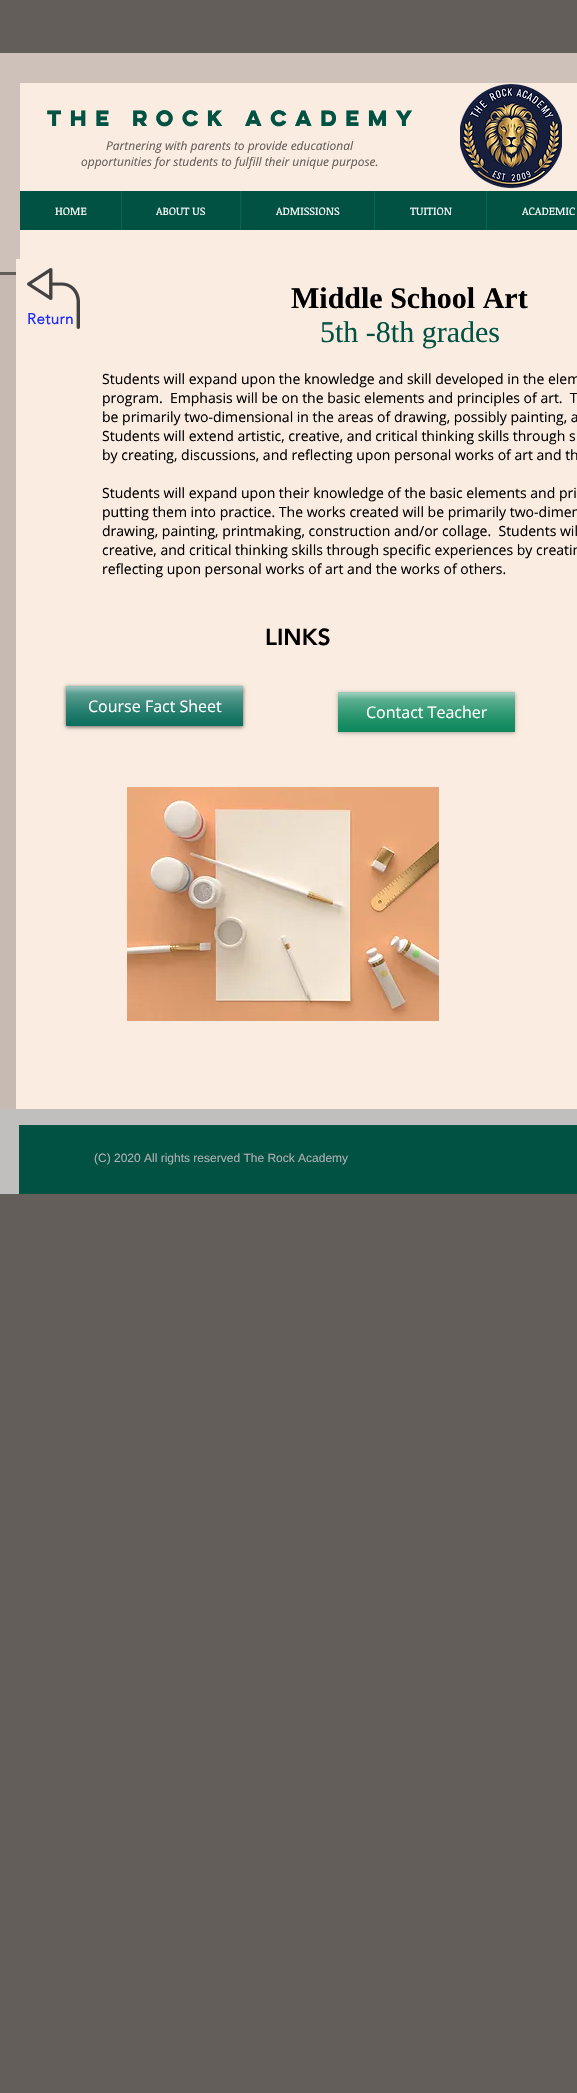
void draw(SkCanvas* canvas) {
  SkPaint paint;
  paint.setAntiAlias(true);
  auto face = [&](const char* family, int weight, float size, bool italic = false) {
    SkFontStyle style(weight, SkFontStyle::kNormal_Width,
      italic ? SkFontStyle::kItalic_Slant : SkFontStyle::kUpright_Slant);
    SkFont result(fontMgr->matchFamilyStyle(family, style), size);
    result.setSubpixel(true);
    return result;
  };
  auto writeSpaced = [&](const char* s, float x, float y, const SkFont& font, const SkPaint& ink, float letter, float word) {
    std::vector<SkGlyphID> glyphs(font.countText(s, strlen(s), SkTextEncoding::kUTF8));
    std::vector<float> xs(glyphs.size());
    font.textToGlyphs(s, strlen(s), SkTextEncoding::kUTF8, glyphs);
    font.getXPos(glyphs, xs, x);
    float extra = 0;
    for (size_t i = 0; i < glyphs.size(); i++) {
      xs[i] += extra;
      extra += letter + word * (glyphs[i] == font.unicharToGlyph(' '));
    }
    canvas->drawTextBlob(SkTextBlob::MakeFromPosHGlyphs(glyphs, xs, y, font), 0, 0, ink);
  };
  auto paste = [&](const char* path, float x, float y, float w, float h) {
    auto image = SkImages::DeferredFromEncodedData(SkData::MakeFromFileName(path));
    canvas->drawImageRect(image, SkRect::MakeXYWH(x, y, w, h), SkSamplingOptions());
  };
  canvas->clear(0xff645e5a);
  paint.setColor(0xffcdc1b9);
  canvas->drawRect(SkRect::MakeXYWH(0, 53, 577, 219), paint);
  paint.setColor(0xfffaece1);
  canvas->drawRect(SkRect::MakeXYWH(20, 83, 557, 176), paint);
  paste("img/1.png", 460, 84, 102, 105);
  {
    const struct { float x, y, w, h; SkColor color; } items[] = {
      {20, 191, 557, 39, 0xff015243},
      {121, 191, 1, 39, 0xff016855},
      {240, 191, 1, 39, 0xff016855},
      {374, 191, 1, 39, 0xff016855},
      {486, 191, 1, 39, 0xff016855},
      {0, 275, 16, 834, 0xffc6bab2},
      {16, 259, 561, 850, 0xfffaece1},
    };
    for (auto [x, y, w, h, color] : items) {
      paint.setColor(color);
      canvas->drawRect(SkRect::MakeXYWH(x, y, w, h), paint);
    }
  }
  paste("img/2.png", 27, 268, 53, 61);
  paint.setColor(0x99000000);
  paint.setMaskFilter(SkMaskFilter::MakeBlur(kNormal_SkBlurStyle, 2));
  canvas->drawRect(SkRect::MakeXYWH(66, 687, 177, 40), paint);
  paint.setMaskFilter(nullptr);
  paint.setColor(0xff016855);
  canvas->drawRect(SkRect::MakeXYWH(66, 686, 177, 40), paint);
  paste("img/3.png", 66, 686, 177, 40);
  paint.setColor(0x4d000000);
  paint.setMaskFilter(SkMaskFilter::MakeBlur(kNormal_SkBlurStyle, 2));
  canvas->drawRect(SkRect::MakeXYWH(338, 693, 177, 40), paint);
  paint.setMaskFilter(nullptr);
  paint.setColor(0xff018253);
  canvas->drawRect(SkRect::MakeXYWH(338, 692, 177, 40), paint);
  paste("img/4.png", 338, 692, 177, 40);
  paste("img/5.png", 127, 787, 312, 234);
  paint.setColor(0xffc1bfbd);
  canvas->drawRect(SkRect::MakeXYWH(0, 1109, 577, 85), paint);
  paint.setColor(0xff015243);
  canvas->drawRect(SkRect::MakeXYWH(19, 1125, 558, 69), paint);
  auto f0 = face("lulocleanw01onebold", 700, 20);
  writeSpaced("The Rock Academy", 47, 126, f0, paint, 4, 0);
  auto f1 = face("Open Sans", 400, 12, true);
  paint.setColor(0xff645e5a);
  canvas->drawString("Partnering with parents to provide educational", 106, 150, f1, paint);
  canvas->drawString("opportunities for students to fulfill their unique purpose.", 81, 166, f1, paint);
  auto f2 = face("Noticia Text", 400, 11);
  paint.setColor(0xffffffff);
  {
    const struct { const char* s; float x, y; } items[] = {
      {"HOME", 55, 215},
      {"ABOUT US", 156, 215},
      {"ADMISSIONS", 276, 215},
      {"TUITION", 410, 215},
      {"ACADEMIC", 522, 215},
    };
    for (auto [s, x, y] : items) {
      canvas->drawString(s, x, y, f2, paint);
    }
  }
  auto f3 = face("Liberation Serif", 700, 30);
  paint.setColor(0xff000000);
  canvas->drawString("Middle School Art", 291, 308, f3, paint);
  auto f4 = face("Liberation Serif", 400, 30);
  paint.setColor(0xff015243);
  canvas->drawString("5th -8th grades", 320, 342, f4, paint);
  auto f5 = face("Open Sans", 400, 14);
  paint.setColor(0xff000000);
  {
    const struct { const char* s; float x, y; } items[] = {
      {"Students will expand upon the knowledge and skill developed in the elem", 102, 384},
      {"program.  Emphasis will be on the basic elements and principles of art.  T", 102, 403},
      {"be primarily two-dimensional in the areas of drawing, possibly painting, a", 102, 422},
      {"Students will extend artistic, creative, and critical thinking skills through s", 102, 441},
      {"by creating, discussions, and reflecting upon personal works of art and th", 102, 460},
      {"Students will expand upon their knowledge of the basic elements and pri", 102, 498},
      {"putting them into practice. The works created will be primarily two-dimen", 102, 517},
      {"drawing, painting, printmaking, construction and/or collage.  Students wil", 102, 536},
      {"creative, and critical thinking skills through specific experiences by creatin", 102, 555},
      {"reflecting upon personal works of art and the works of others.", 102, 574},
    };
    for (auto [s, x, y] : items) {
      canvas->drawString(s, x, y, f5, paint);
    }
  }
  auto f6 = face("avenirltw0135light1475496", 700, 15);
  paint.setColor(0xff1d2cf3);
  writeSpaced("Return", 27, 324, f6, paint, 0.5f, 0);
  auto f7 = face("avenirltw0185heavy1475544", 900, 23);
  paint.setColor(0xff000000);
  canvas->drawString("LINKS", 265, 645, f7, paint);
  auto f8 = face("Open Sans", 400, 16);
  paint.setColor(0xffffffff);
  canvas->drawString("Course Fact Sheet", 88, 712, f8, paint);
  canvas->drawString("Contact Teacher", 366, 718, f8, paint);
  auto f9 = face("Liberation Sans", 400, 12);
  paint.setColor(0xffb0b0b0);
  canvas->drawString("(C) 2020 All rights reserved The Rock Academy", 94, 1162, f9, paint);
}
